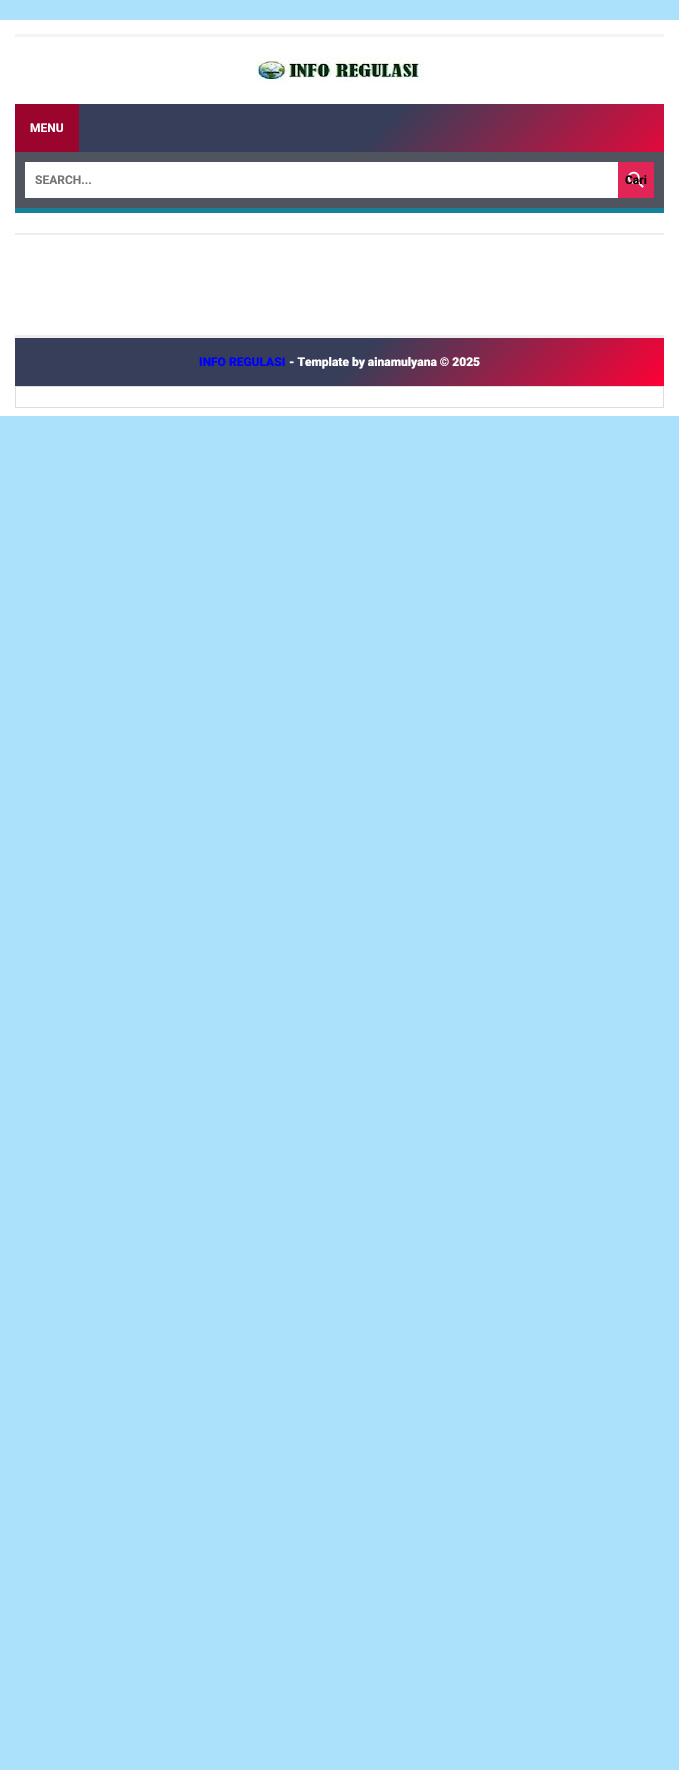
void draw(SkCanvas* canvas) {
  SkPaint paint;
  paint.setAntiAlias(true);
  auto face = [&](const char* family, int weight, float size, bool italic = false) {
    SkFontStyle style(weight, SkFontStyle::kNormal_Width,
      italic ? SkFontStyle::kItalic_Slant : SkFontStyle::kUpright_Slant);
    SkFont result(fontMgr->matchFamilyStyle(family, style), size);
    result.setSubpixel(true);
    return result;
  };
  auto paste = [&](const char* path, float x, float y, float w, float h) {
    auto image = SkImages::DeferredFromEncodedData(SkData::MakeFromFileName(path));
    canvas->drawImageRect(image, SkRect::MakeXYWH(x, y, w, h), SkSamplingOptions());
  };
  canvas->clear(0xffabe1fb);
  paint.setColor(0xffffffff);
  canvas->drawRect(SkRect::MakeXYWH(0, 20, 679, 396), paint);
  paint.setColor(0xfff3f3f3);
  canvas->drawRect(SkRect::MakeXYWH(15, 34, 649, 3), paint);
  paste("img/1.png", 256, 57, 168, 27);
  {
    const SkColor colors[] = {0xff373e59, 0xffff0036};
    const float stops[] = {0.52f, 1};
    const SkPoint ends[] = {{151, -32}, {528, 344}};
    paint.setShader(SkGradientShader::MakeLinear(ends, colors, stops, 2, SkTileMode::kClamp));
    paint.setAlpha(255);
  }
  canvas->drawRect(SkRect::MakeXYWH(79, 104, 585, 48), paint);
  paint.setShader(nullptr);
  {
    const struct { float x, y, w, h; SkColor color; } items[] = {
      {15, 104, 64, 48, 0xff9b052d},
      {15, 152, 649, 56, 0xff50545f},
      {25, 162, 593, 36, 0xffffffff},
      {618, 162, 36, 36, 0xffe12557},
    };
    for (auto [x, y, w, h, color] : items) {
      paint.setColor(color);
      canvas->drawRect(SkRect::MakeXYWH(x, y, w, h), paint);
    }
  }
  paste("img/2.png", 627, 171, 17, 17);
  paint.setColor(0xff148199);
  canvas->drawRect(SkRect::MakeXYWH(15, 208, 649, 5), paint);
  paint.setColor(0xffeeeeee);
  canvas->drawRect(SkRect::MakeXYWH(15, 233, 649, 2), paint);
  {
    const SkColor colors[] = {0xff373e59, 0xffff0036};
    const float stops[] = {0.52f, 1};
    const SkPoint ends[] = {{165, 188}, {514, 536}};
    paint.setShader(SkGradientShader::MakeLinear(ends, colors, stops, 2, SkTileMode::kClamp));
    paint.setAlpha(255);
  }
  canvas->drawRect(SkRect::MakeXYWH(15, 338, 649, 48), paint);
  paint.setShader(nullptr);
  paint.setColor(0xffeeeeee);
  canvas->drawRect(SkRect::MakeXYWH(15, 335, 649, 3), paint);
  paint.setStroke(true);
  paint.setStrokeWidth(1);
  paint.setColor(0xffdedede);
  canvas->drawRect(SkRect::MakeXYWH(15.5f, 386.5f, 648, 21), paint);
  auto f0 = face("Roboto", 700, 12);
  paint.setStroke(false);
  paint.setColor(0xffffffff);
  canvas->drawString("MENU", 30, 132, f0, paint);
  paint.setColor(0xff757575);
  canvas->drawString("SEARCH...", 35, 184, f0, paint);
  paint.setColor(0xff000000);
  canvas->drawString("Cari", 625, 184, f0, paint);
  auto f1 = face("Roboto", 900, 12);
  paint.setColor(0xff0000ff);
  canvas->drawString("INFO REGULASI", 199, 366, f1, paint);
  paint.setColor(0xffffffff);
  canvas->drawString("- Template by ainamulyana © 2025", 289, 366, f1, paint);
}
